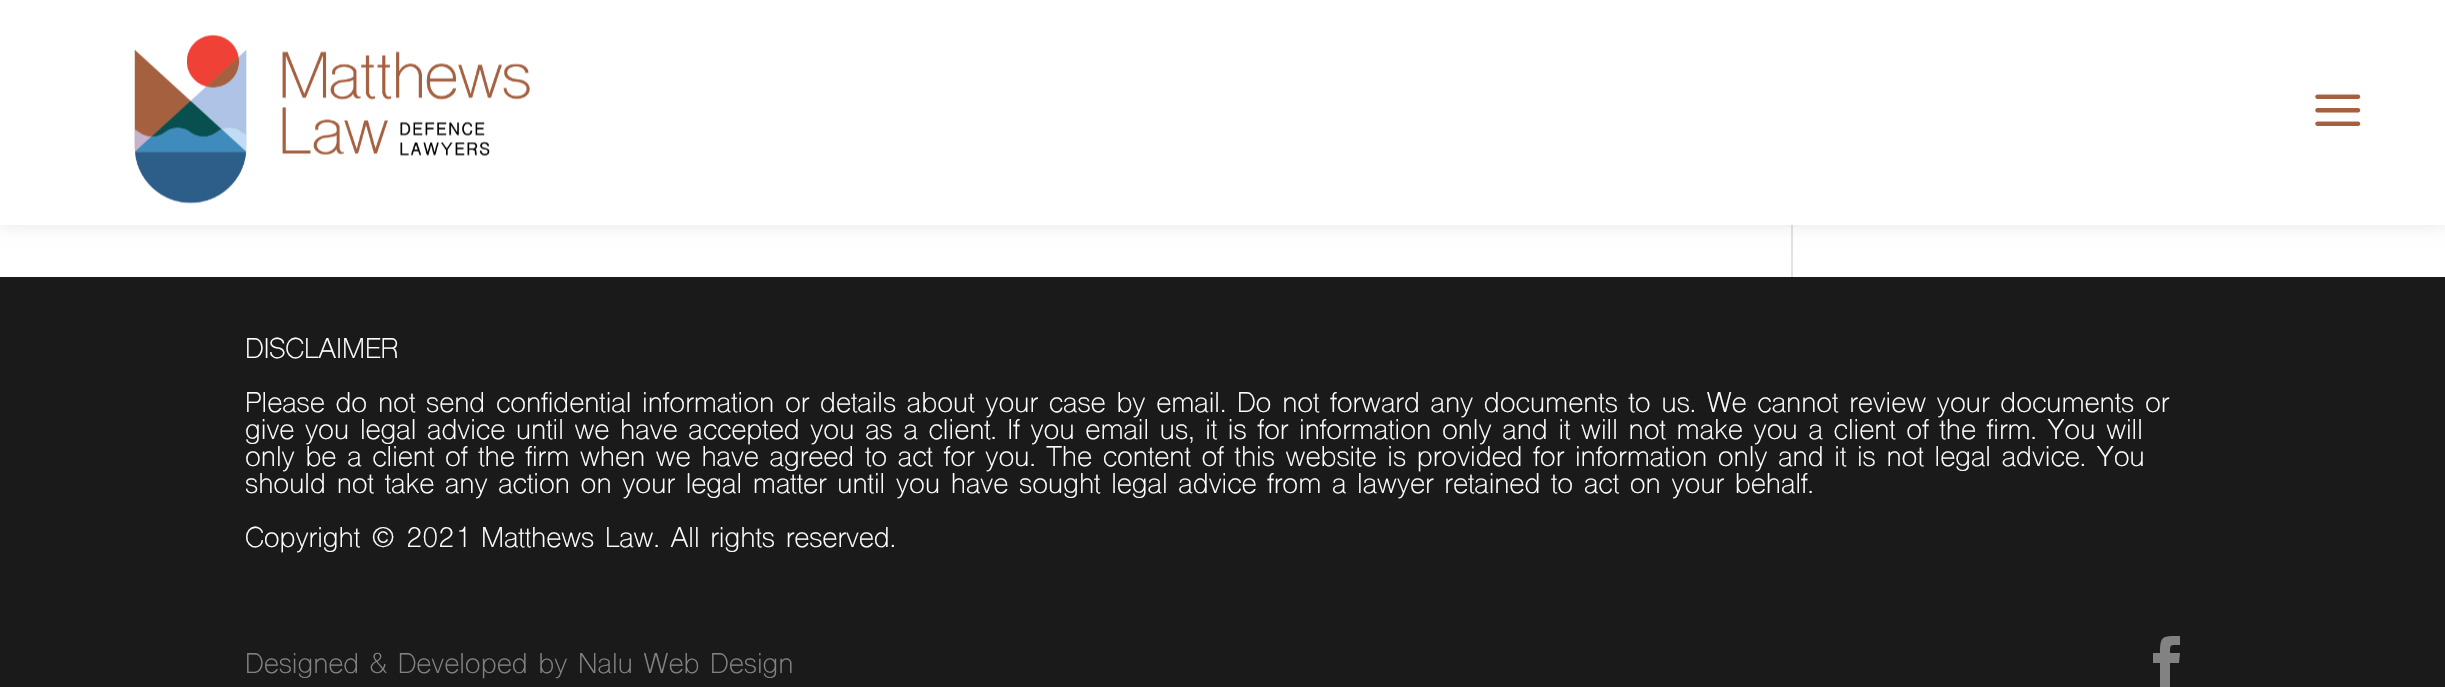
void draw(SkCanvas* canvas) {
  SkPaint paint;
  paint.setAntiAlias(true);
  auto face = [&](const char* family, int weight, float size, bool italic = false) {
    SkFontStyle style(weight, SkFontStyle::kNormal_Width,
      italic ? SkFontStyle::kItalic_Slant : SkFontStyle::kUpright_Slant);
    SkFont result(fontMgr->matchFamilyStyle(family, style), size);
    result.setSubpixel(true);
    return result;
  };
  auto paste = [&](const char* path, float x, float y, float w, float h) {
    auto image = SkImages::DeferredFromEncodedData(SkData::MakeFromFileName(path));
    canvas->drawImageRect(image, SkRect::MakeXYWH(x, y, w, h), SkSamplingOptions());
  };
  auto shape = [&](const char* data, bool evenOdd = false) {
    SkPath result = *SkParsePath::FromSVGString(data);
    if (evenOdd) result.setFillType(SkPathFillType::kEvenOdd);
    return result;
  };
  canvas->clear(0xffffffff);
  paint.setColor(0xffe2e2e2);
  canvas->drawRect(SkRect::MakeXYWH(1791, 225, 2, 52), paint);
  paint.setColor(0x1a000000);
  paint.setMaskFilter(SkMaskFilter::MakeBlur(kNormal_SkBlurStyle, 8));
  canvas->drawRect(SkRect::MakeXYWH(0, 0, 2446, 225), paint);
  paint.setMaskFilter(nullptr);
  paint.setColor(0xffffffff);
  canvas->drawRect(SkRect::MakeXYWH(0, 0, 2445, 225), paint);
  paste("img/1.png", 134, 34, 396, 170);
  paste("img/2.png", 2315, 94, 46, 32);
  paint.setColor(0xff1a1a1a);
  canvas->drawRect(SkRect::MakeXYWH(0, 277, 2445, 410), paint);
  paint.setColor(0xff828282);
  canvas->drawPath(shape("M2160 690H2170V663H2179L2180 653H2170C2170 644 2170 645 2180 645V636C2163 636 2160 635 2160 653H2153V663H2160Z"), paint);
  auto f0 = face("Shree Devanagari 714", 400, 27);
  paint.setColor(0xffffffff);
  {
    const struct { const char* s; float x, y; } items[] = {
      {"DISCLAIMER", 245, 358},
      {"Please do not send confidential information or details about your case by email. Do not forward any documents to us. We cannot review your documents or", 245, 412},
      {"give you legal advice until we have accepted you as a client. If you email us, it is for information only and it will not make you a client of the firm. You will", 245, 439},
      {"only be a client of the firm when we have agreed to act for you. The content of this website is provided for information only and it is not legal advice. You", 245, 466},
      {"should not take any action on your legal matter until you have sought legal advice from a lawyer retained to act on your behalf.", 245, 493},
      {"Copyright © 2021 Matthews Law. All rights reserved.", 245, 547},
    };
    for (auto [s, x, y] : items) {
      canvas->drawString(s, x, y, f0, paint);
    }
  }
  paint.setColor(0xff828282);
  canvas->drawString("Designed & Developed by Nalu Web Design", 245, 673, f0, paint);
}
